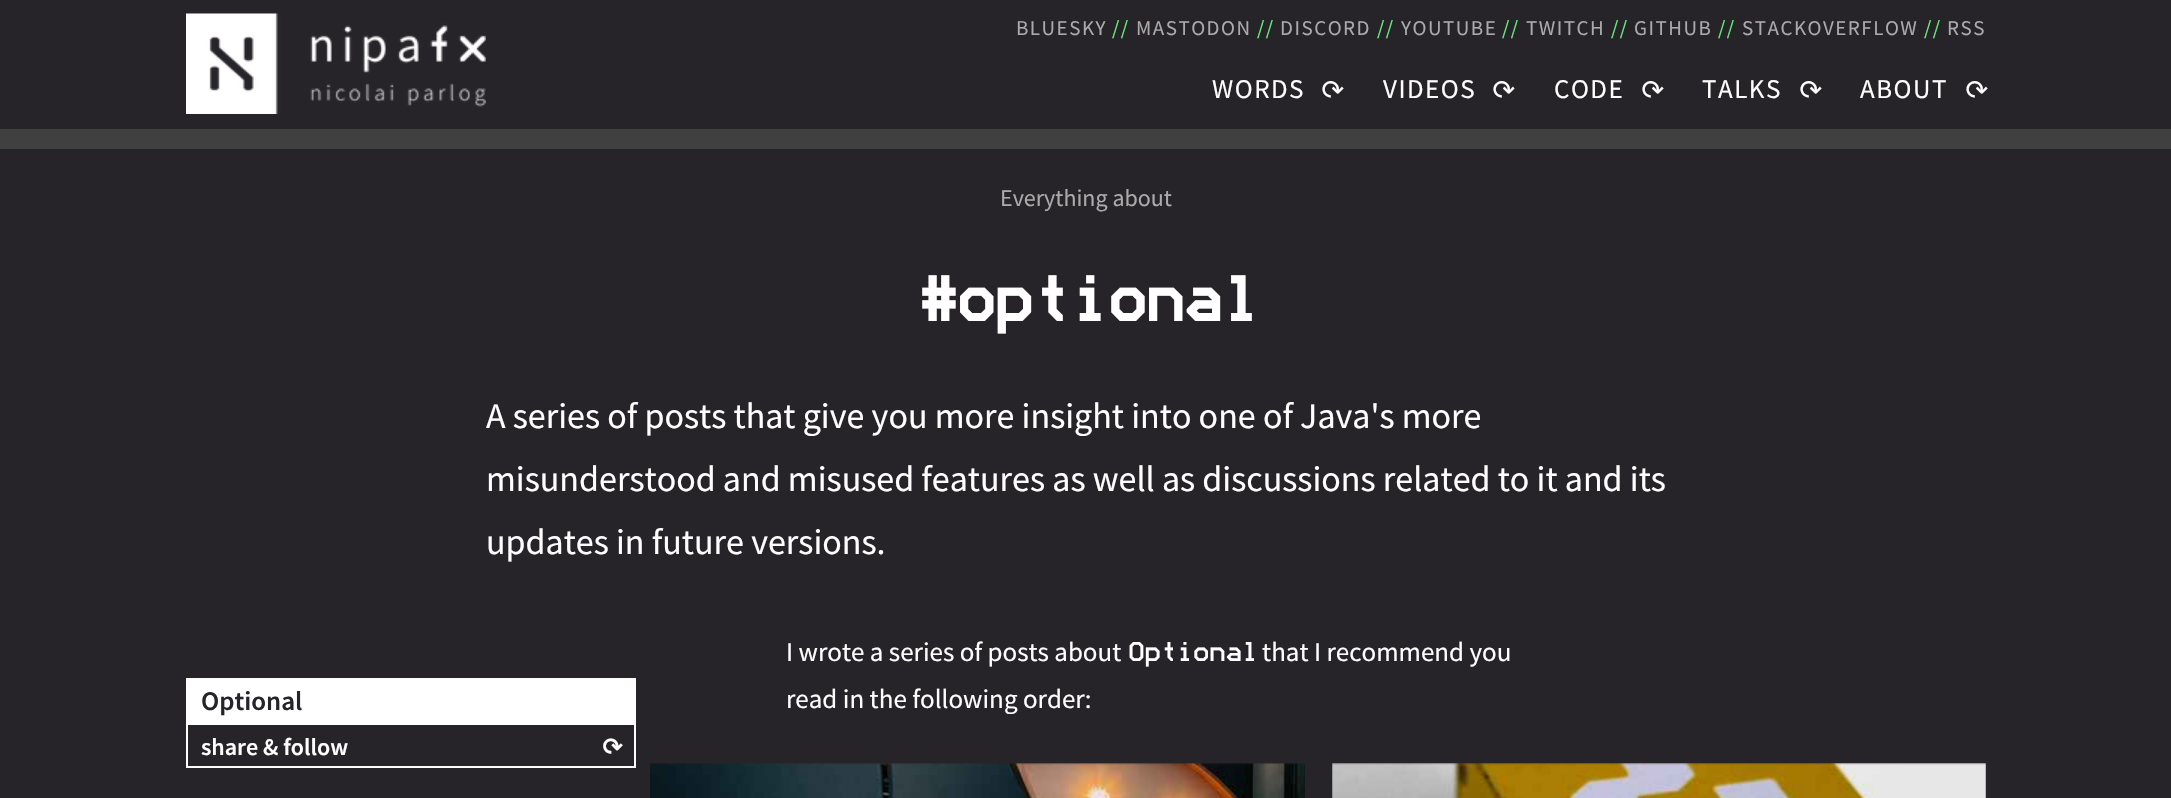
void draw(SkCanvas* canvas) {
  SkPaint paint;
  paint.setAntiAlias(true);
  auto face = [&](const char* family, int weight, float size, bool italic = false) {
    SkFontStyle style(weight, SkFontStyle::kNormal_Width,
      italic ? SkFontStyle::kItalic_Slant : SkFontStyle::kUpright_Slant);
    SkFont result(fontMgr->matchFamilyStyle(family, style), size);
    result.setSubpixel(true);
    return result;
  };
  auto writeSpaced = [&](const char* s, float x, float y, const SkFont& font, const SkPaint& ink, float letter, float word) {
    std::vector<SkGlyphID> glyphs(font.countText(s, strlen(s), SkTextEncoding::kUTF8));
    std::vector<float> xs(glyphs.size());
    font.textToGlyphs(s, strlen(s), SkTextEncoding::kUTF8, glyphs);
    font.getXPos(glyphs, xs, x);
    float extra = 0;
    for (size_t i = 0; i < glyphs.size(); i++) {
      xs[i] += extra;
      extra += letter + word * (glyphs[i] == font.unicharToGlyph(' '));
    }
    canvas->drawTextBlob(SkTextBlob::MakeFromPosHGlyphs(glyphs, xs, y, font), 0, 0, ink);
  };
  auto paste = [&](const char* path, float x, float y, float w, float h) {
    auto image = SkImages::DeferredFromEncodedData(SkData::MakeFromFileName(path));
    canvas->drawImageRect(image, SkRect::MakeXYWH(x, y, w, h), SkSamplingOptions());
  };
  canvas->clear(0xff262429);
  paste("img/1.png", 186, 13, 300, 101);
  paint.setColor(0xff404040);
  canvas->drawRect(SkRect::MakeXYWH(0, 129, 2171, 20), paint);
  paint.setStroke(true);
  paint.setStrokeWidth(2);
  paint.setColor(0xffffffff);
  canvas->drawRect(SkRect::MakeXYWH(187, 679, 448, 88), paint);
  paint.setStroke(false);
  canvas->drawRect(SkRect::MakeXYWH(188, 680, 446, 45), paint);
  paste("img/2.png", 650, 763, 655, 35);
  paste("img/3.png", 1332, 763, 654, 35);
  auto f0 = face("Source Sans Pro", 400, 21);
  paint.setColor(0xffaaaaaa);
  writeSpaced("BLUESKY", 1016, 35, f0, paint, 1.5f, 0);
  paint.setColor(0xff69ea7d);
  writeSpaced("//", 1112, 35, f0, paint, 1.5f, 0);
  paint.setColor(0xffaaaaaa);
  writeSpaced("MASTODON", 1136, 35, f0, paint, 1.5f, 0);
  paint.setColor(0xff69ea7d);
  writeSpaced("//", 1257, 35, f0, paint, 1.5f, 0);
  paint.setColor(0xffaaaaaa);
  writeSpaced("DISCORD", 1280, 35, f0, paint, 1.5f, 0);
  paint.setColor(0xff69ea7d);
  writeSpaced("//", 1377, 35, f0, paint, 1.5f, 0);
  paint.setColor(0xffaaaaaa);
  writeSpaced("YOUTUBE", 1401, 35, f0, paint, 1.5f, 0);
  paint.setColor(0xff69ea7d);
  writeSpaced("//", 1502, 35, f0, paint, 1.5f, 0);
  paint.setColor(0xffaaaaaa);
  writeSpaced("TWITCH", 1526, 35, f0, paint, 1.5f, 0);
  paint.setColor(0xff69ea7d);
  writeSpaced("//", 1611, 35, f0, paint, 1.5f, 0);
  paint.setColor(0xffaaaaaa);
  writeSpaced("GITHUB", 1634, 35, f0, paint, 1.5f, 0);
  paint.setColor(0xff69ea7d);
  writeSpaced("//", 1718, 35, f0, paint, 1.5f, 0);
  paint.setColor(0xffaaaaaa);
  writeSpaced("STACKOVERFLOW", 1742, 35, f0, paint, 1.5f, 0);
  paint.setColor(0xff69ea7d);
  writeSpaced("//", 1924, 35, f0, paint, 1.5f, 0);
  paint.setColor(0xffaaaaaa);
  writeSpaced("RSS", 1947, 35, f0, paint, 1.5f, 0);
  auto f1 = face("Source Sans Pro", 400, 27);
  paint.setColor(0xffffffff);
  writeSpaced("WORDS", 1212, 98, f1, paint, 1.5f, 0);
  auto f2 = face("DejaVu Sans", 400, 27);
  canvas->save();
  canvas->rotate(135, 1332, 74);
  writeSpaced("↻", 1332, 74, f2, paint, 1.5f, 0);
  canvas->restore();
  writeSpaced("VIDEOS", 1383, 98, f1, paint, 1.5f, 0);
  canvas->save();
  canvas->rotate(135, 1503, 74);
  writeSpaced("↻", 1503, 74, f2, paint, 1.5f, 0);
  canvas->restore();
  writeSpaced("CODE", 1554, 98, f1, paint, 1.5f, 0);
  canvas->save();
  canvas->rotate(135, 1652, 74);
  writeSpaced("↻", 1652, 74, f2, paint, 1.5f, 0);
  canvas->restore();
  writeSpaced("TALKS", 1702, 98, f1, paint, 1.5f, 0);
  canvas->save();
  canvas->rotate(135, 1810, 74);
  writeSpaced("↻", 1810, 74, f2, paint, 1.5f, 0);
  canvas->restore();
  writeSpaced("ABOUT", 1860, 98, f1, paint, 1.5f, 0);
  canvas->save();
  canvas->rotate(135, 1976, 74);
  writeSpaced("↻", 1976, 74, f2, paint, 1.5f, 0);
  canvas->restore();
  auto f3 = face("Source Sans Pro", 400, 24);
  paint.setColor(0xffaaaaaa);
  canvas->drawString("Everything about", 1000, 206, f3, paint);
  auto f4 = face("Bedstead", 700, 63);
  paint.setColor(0xffffffff);
  canvas->drawString("#optional", 916, 321, f4, paint);
  auto f5 = face("Source Sans Pro", 400, 36);
  {
    const struct { const char* s; float x, y; } items[] = {
      {"A series of posts that give you more insight into one of Java's more", 486, 428},
      {"misunderstood and misused features as well as discussions related to it and its", 486, 491},
      {"updates in future versions.", 486, 554},
    };
    for (auto [s, x, y] : items) {
      canvas->drawString(s, x, y, f5, paint);
    }
  }
  canvas->drawString("I wrote a series of posts about", 786, 661, f1, paint);
  auto f6 = face("Bedstead", 500, 27);
  canvas->drawString("Optional", 1127, 661, f6, paint);
  canvas->drawString("that I recommend you", 1262, 661, f1, paint);
  canvas->drawString("read in the following order:", 786, 708, f1, paint);
  auto f7 = face("Source Sans Pro", 600, 27);
  paint.setColor(0xff262429);
  canvas->drawString("Optional", 201, 710, f7, paint);
  auto f8 = face("Source Sans Pro", 600, 24);
  paint.setColor(0xffffffff);
  canvas->drawString("share & follow", 201, 755, f8, paint);
  auto f9 = face("DejaVu Sans", 700, 24);
  canvas->save();
  canvas->rotate(135, 612, 732);
  canvas->drawString("↻", 612, 732, f9, paint);
  canvas->restore();
}
